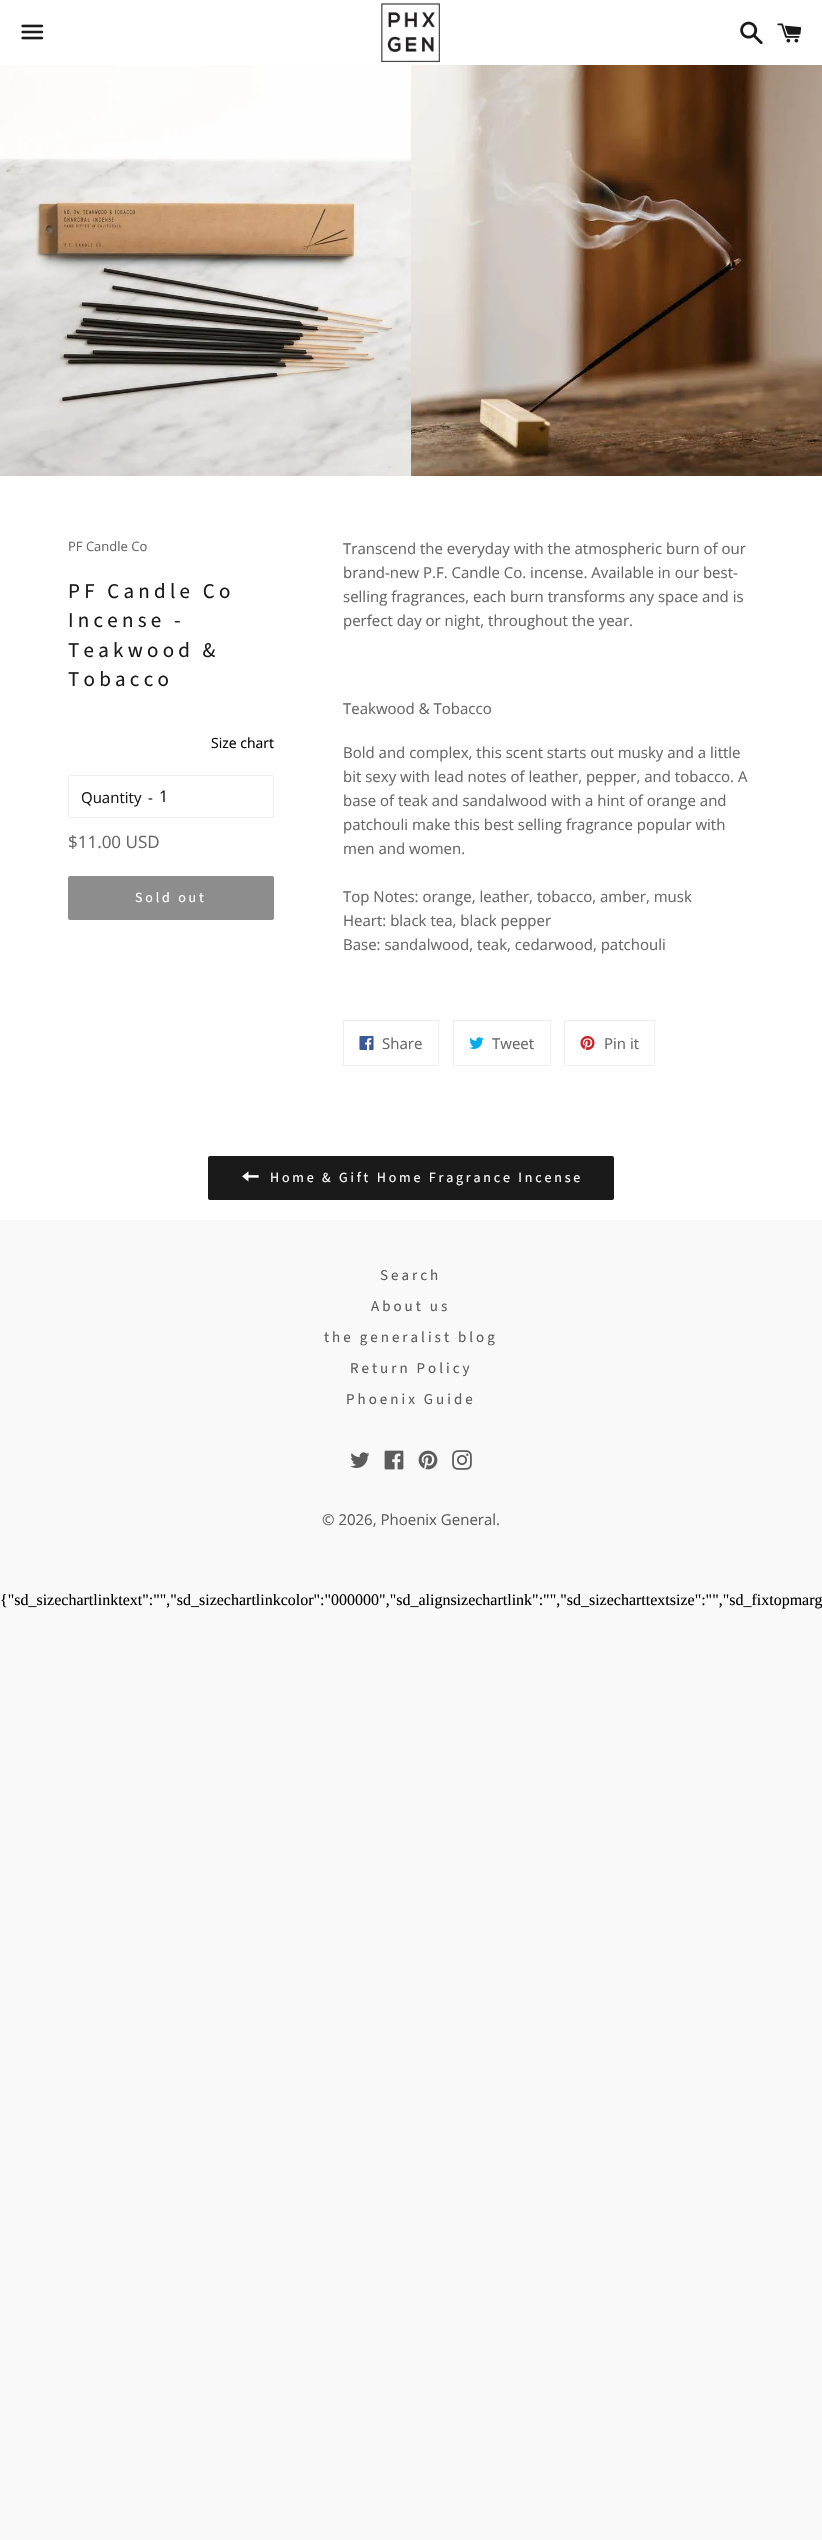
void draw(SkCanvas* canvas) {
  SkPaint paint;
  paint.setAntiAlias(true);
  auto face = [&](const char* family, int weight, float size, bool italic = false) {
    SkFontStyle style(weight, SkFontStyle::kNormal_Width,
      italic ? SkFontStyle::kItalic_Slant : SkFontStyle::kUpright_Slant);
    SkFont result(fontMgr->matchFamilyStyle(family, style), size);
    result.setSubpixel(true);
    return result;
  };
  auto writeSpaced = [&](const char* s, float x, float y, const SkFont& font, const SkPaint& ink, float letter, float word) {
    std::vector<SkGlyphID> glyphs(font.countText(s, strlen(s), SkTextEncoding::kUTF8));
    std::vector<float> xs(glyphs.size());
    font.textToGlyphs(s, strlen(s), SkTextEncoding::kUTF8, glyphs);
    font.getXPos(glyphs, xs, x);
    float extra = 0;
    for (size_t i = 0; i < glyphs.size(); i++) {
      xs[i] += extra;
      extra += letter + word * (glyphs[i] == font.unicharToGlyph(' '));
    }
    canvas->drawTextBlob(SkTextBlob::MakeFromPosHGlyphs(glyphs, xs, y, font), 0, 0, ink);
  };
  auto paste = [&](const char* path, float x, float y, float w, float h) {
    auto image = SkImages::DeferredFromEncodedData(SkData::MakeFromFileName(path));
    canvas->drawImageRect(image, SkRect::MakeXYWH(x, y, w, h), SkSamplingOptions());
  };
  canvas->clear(0xfff9f9f9);
  paint.setColor(0xffffffff);
  canvas->drawRect(SkRect::MakeXYWH(0, 0, 822, 1220), paint);
  paste("img/1.png", 21, 24, 23, 16);
  paste("img/2.png", 381, 2, 59, 61);
  paste("img/3.png", 740, 21, 23, 24);
  paste("img/4.png", 777, 23, 25, 20);
  paste("img/5.png", 0, 65, 411, 411);
  paste("img/6.png", 411, 65, 411, 411);
  paint.setStroke(true);
  paint.setStrokeWidth(1);
  paint.setColor(0xffeeeeee);
  canvas->drawRoundRect(SkRect::MakeXYWH(68.5f, 775.5f, 205, 42), 1.5f, 1.5f, paint);
  paint.setStroke(false);
  paint.setColor(0xff8d8d8d);
  canvas->drawRoundRect(SkRect::MakeXYWH(68, 876, 206, 44), 2, 2, paint);
  paint.setStroke(true);
  paint.setColor(0xffeeeeee);
  canvas->drawRect(SkRect::MakeXYWH(343.5f, 1020.5f, 95, 45), paint);
  paste("img/7.png", 359, 1036, 15, 14);
  canvas->drawRect(SkRect::MakeXYWH(453.5f, 1020.5f, 97, 45), paint);
  paste("img/8.png", 469, 1037, 15, 12);
  canvas->drawRect(SkRect::MakeXYWH(564.5f, 1020.5f, 90, 45), paint);
  paste("img/9.png", 580, 1036, 15, 14);
  paint.setStroke(false);
  paint.setColor(0xff1a1a1a);
  canvas->drawRoundRect(SkRect::MakeXYWH(208, 1156, 406, 44), 2, 2, paint);
  paste("img/10.png", 242, 1171, 17, 11);
  paste("img/11.png", 350, 1452, 20, 16);
  paste("img/12.png", 384, 1450, 20, 20);
  paste("img/13.png", 418, 1450, 20, 20);
  paste("img/14.png", 452, 1450, 20, 20);
  auto f0 = face("Open Sans", 400, 13);
  paint.setColor(0xff666666);
  canvas->drawString("PF Candle Co", 68, 551, f0, paint);
  auto f1 = face("Source Sans Pro", 400, 21);
  paint.setColor(0xff1a1a1a);
  {
    const struct { const char* s; float x, y; } items[] = {
      {"PF Candle Co", 68, 598},
      {"Incense -", 68, 627},
      {"Teakwood &", 68, 657},
      {"Tobacco", 68, 686},
    };
    for (auto [s, x, y] : items) {
      writeSpaced(s, x, y, f1, paint, 4.25f, 0);
    }
  }
  auto f2 = face("Open Sans", 400, 14);
  paint.setColor(0xff000000);
  canvas->drawString("Size chart", 211, 748, f2, paint);
  auto f3 = face("Open Sans", 400, 15);
  paint.setColor(0xff1a1a1a);
  canvas->drawString("Quantity", 81, 803, f3, paint);
  canvas->drawString("-", 148, 803, f3, paint);
  auto f4 = face("Open Sans", 400, 16);
  canvas->drawString("1", 159, 802, f4, paint);
  auto f5 = face("Open Sans", 400, 17);
  paint.setColor(0xff666666);
  canvas->drawString("$11.00 USD", 68, 848, f5, paint);
  auto f6 = face("Source Sans Pro", 400, 14);
  paint.setColor(0xffffffff);
  writeSpaced("Sold out", 135, 902, f6, paint, 2.8f, 0);
  paint.setColor(0xff666666);
  {
    const struct { const char* s; float x, y; } items[] = {
      {"Transcend the everyday with the atmospheric burn of our", 343, 554},
      {"brand-new P.F. Candle Co. incense. Available in our best-", 343, 578},
      {"selling fragrances, each burn transforms any space and is", 343, 602},
      {"perfect day or night, throughout the year.", 343, 626},
      {"Teakwood & Tobacco", 343, 714},
      {"Bold and complex, this scent starts out musky and a little", 343, 758},
      {"bit sexy with lead notes of leather, pepper, and tobacco. A", 343, 782},
      {"base of teak and sandalwood with a hint of orange and", 343, 806},
      {"patchouli make this best selling fragrance popular with", 343, 830},
      {"men and women.", 343, 854},
      {"Top Notes: orange, leather, tobacco, amber, musk", 343, 902},
      {"Heart: black tea, black pepper", 343, 926},
      {"Base: sandalwood, teak, cedarwood, patchouli", 343, 950},
      {"Share", 382, 1049},
      {"Tweet", 492, 1049},
      {"Pin it", 604, 1049},
    };
    for (auto [s, x, y] : items) {
      canvas->drawString(s, x, y, f3, paint);
    }
  }
  paint.setColor(0xffffffff);
  writeSpaced("Home & Gift Home Fragrance Incense", 270, 1182, f6, paint, 2.8f, 0);
  auto f7 = face("Source Sans Pro", 400, 15);
  paint.setColor(0xff5c5c5c);
  {
    const struct { const char* s; float x, y; } items[] = {
      {"Search", 380, 1280},
      {"About us", 371, 1311},
      {"the generalist blog", 324, 1342},
      {"Return Policy", 350, 1373},
      {"Phoenix Guide", 346, 1404},
    };
    for (auto [s, x, y] : items) {
      writeSpaced(s, x, y, f7, paint, 3, 0);
    }
  }
  canvas->drawString("© 2026, Phoenix General.", 322, 1525, f3, paint);
  auto f8 = face("Liberation Serif", 400, 16);
  paint.setColor(0xff000000);
  canvas->drawString("{\"sd_sizechartlinktext\":\"\",\"sd_sizechartlinkcolor\":\"000000\",\"sd_alignsizechartlink\":\"\",\"sd_sizecharttextsize\":\"\",\"sd_fixtopmarg", 0, 1605, f8, paint);
}
